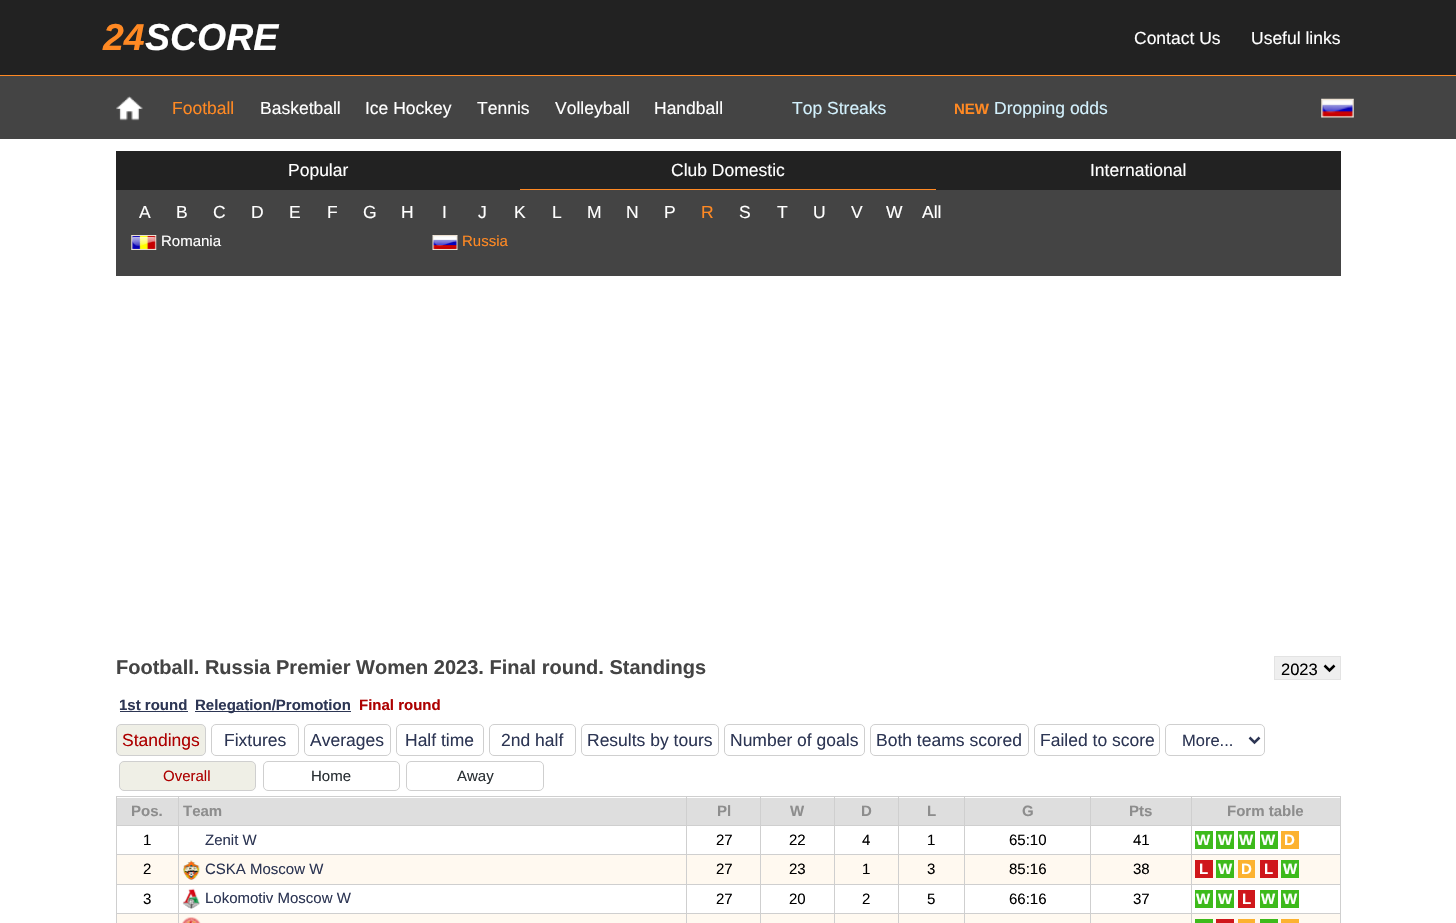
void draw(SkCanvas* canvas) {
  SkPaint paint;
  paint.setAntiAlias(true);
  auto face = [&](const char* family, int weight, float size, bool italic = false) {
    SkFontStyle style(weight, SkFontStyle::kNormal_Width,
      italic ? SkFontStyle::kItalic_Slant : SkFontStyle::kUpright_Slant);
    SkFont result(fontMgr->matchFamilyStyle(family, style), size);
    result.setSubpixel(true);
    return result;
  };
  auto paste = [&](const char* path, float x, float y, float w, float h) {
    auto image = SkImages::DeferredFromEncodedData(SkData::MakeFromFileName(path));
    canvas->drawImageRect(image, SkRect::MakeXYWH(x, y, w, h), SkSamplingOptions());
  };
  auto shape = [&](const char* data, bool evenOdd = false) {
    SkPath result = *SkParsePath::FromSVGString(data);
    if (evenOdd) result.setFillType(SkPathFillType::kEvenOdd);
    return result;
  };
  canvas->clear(0xffffffff);
  {
    const struct { float x, y, w, h; SkColor color; } items[] = {
      {0, 0, 1456, 75, 0xff222222},
      {0, 76, 1456, 63, 0xff444444},
      {0, 75, 1456, 1, 0xffff8923},
    };
    for (auto [x, y, w, h, color] : items) {
      paint.setColor(color);
      canvas->drawRect(SkRect::MakeXYWH(x, y, w, h), paint);
    }
  }
  paste("img/1.png", 116, 96, 27, 25);
  paste("img/2.png", 1321, 98, 33, 20);
  {
    const struct { float x, y, w, h; SkColor color; } items[] = {
      {116, 190, 1225, 86, 0xff444444},
      {116, 151, 1225, 39, 0xff222222},
      {520, 189, 416, 1, 0xffff8923},
    };
    for (auto [x, y, w, h, color] : items) {
      paint.setColor(color);
      canvas->drawRect(SkRect::MakeXYWH(x, y, w, h), paint);
    }
  }
  paste("img/3.png", 131, 235, 26, 15);
  paste("img/4.png", 432, 235, 26, 15);
  paint.setColor(0xffefefef);
  canvas->drawRect(SkRect::MakeXYWH(1274.5f, 656.5f, 66, 23), paint);
  paint.setStroke(true);
  paint.setStrokeWidth(1);
  paint.setColor(0xffe3e3e3);
  canvas->drawRect(SkRect::MakeXYWH(1274.5f, 656.5f, 66, 23), paint);
  paint.setStrokeWidth(2.5f);
  paint.setColor(0xff000000);
  canvas->drawPath(shape("M1324.5 665.5L1329.5 670.5L1334.5 665.5"), paint);
  paint.setStroke(false);
  paint.setColor(0xff2d3654);
  canvas->drawRect(SkRect::MakeXYWH(120, 711, 68, 1), paint);
  canvas->drawRect(SkRect::MakeXYWH(195, 711, 156, 1), paint);
  paint.setColor(0xffefefe6);
  canvas->drawRoundRect(SkRect::MakeXYWH(116.5f, 724.5f, 89, 31), 4.5f, 4.5f, paint);
  paint.setStroke(true);
  paint.setStrokeWidth(1);
  paint.setColor(0xffcfcfcf);
  canvas->drawRoundRect(SkRect::MakeXYWH(116.5f, 724.5f, 89, 31), 4.5f, 4.5f, paint);
  canvas->drawRoundRect(SkRect::MakeXYWH(211.5f, 724.5f, 87, 31), 4.5f, 4.5f, paint);
  canvas->drawRoundRect(SkRect::MakeXYWH(304.5f, 724.5f, 86, 31), 4.5f, 4.5f, paint);
  canvas->drawRoundRect(SkRect::MakeXYWH(396.5f, 724.5f, 87, 31), 4.5f, 4.5f, paint);
  canvas->drawRoundRect(SkRect::MakeXYWH(489.5f, 724.5f, 86, 31), 4.5f, 4.5f, paint);
  canvas->drawRoundRect(SkRect::MakeXYWH(581.5f, 724.5f, 137, 31), 4.5f, 4.5f, paint);
  canvas->drawRoundRect(SkRect::MakeXYWH(724.5f, 724.5f, 140, 31), 4.5f, 4.5f, paint);
  canvas->drawRoundRect(SkRect::MakeXYWH(870.5f, 724.5f, 158, 31), 4.5f, 4.5f, paint);
  canvas->drawRoundRect(SkRect::MakeXYWH(1034.5f, 724.5f, 125, 31), 4.5f, 4.5f, paint);
  canvas->drawRoundRect(SkRect::MakeXYWH(1165.5f, 724.5f, 99, 31), 4.5f, 4.5f, paint);
  paint.setStrokeWidth(2.5f);
  paint.setColor(0xff2d3654);
  canvas->drawPath(shape("M1249.5 737.5L1254.5 742.5L1259.5 737.5"), paint);
  paint.setStroke(false);
  paint.setColor(0xffefefe6);
  canvas->drawRoundRect(SkRect::MakeXYWH(119.5f, 761.5f, 136, 29), 4.5f, 4.5f, paint);
  paint.setStroke(true);
  paint.setStrokeWidth(1);
  paint.setColor(0xffcfcfcf);
  canvas->drawRoundRect(SkRect::MakeXYWH(119.5f, 761.5f, 136, 29), 4.5f, 4.5f, paint);
  canvas->drawRoundRect(SkRect::MakeXYWH(263.5f, 761.5f, 136, 29), 4.5f, 4.5f, paint);
  canvas->drawRoundRect(SkRect::MakeXYWH(406.5f, 761.5f, 137, 29), 4.5f, 4.5f, paint);
  paint.setStroke(false);
  {
    const struct { float x, y, w, h; SkColor color; } items[] = {
      {116, 796, 1225, 1, 0xffcfcfcf},
      {1340, 796, 1, 127, 0xffcfcfcf},
      {116, 796, 1, 127, 0xffcfcfcf},
      {117, 798, 61, 27, 0xffdedede},
      {179, 798, 581, 27, 0xffdedede},
      {1191, 825, 150, 1, 0xffcfcfcf},
      {1191, 854, 150, 1, 0xffcfcfcf},
      {117, 855, 1223, 29, 0xfffff9f0},
      {1191, 884, 150, 1, 0xffcfcfcf},
      {1191, 913, 150, 1, 0xffcfcfcf},
      {117, 914, 1223, 9, 0xfffff9f0},
      {1191, 913, 1, 10, 0xffcfcfcf},
      {1090, 913, 103, 1, 0xffcfcfcf},
      {1191, 884, 1, 30, 0xffcfcfcf},
      {1090, 884, 103, 1, 0xffcfcfcf},
      {1191, 854, 1, 31, 0xffcfcfcf},
      {1090, 854, 103, 1, 0xffcfcfcf},
      {1191, 825, 1, 30, 0xffcfcfcf},
      {1090, 825, 103, 1, 0xffcfcfcf},
      {1090, 913, 1, 10, 0xffcfcfcf},
      {964, 913, 127, 1, 0xffcfcfcf},
      {1090, 884, 1, 30, 0xffcfcfcf},
      {964, 884, 127, 1, 0xffcfcfcf},
      {1090, 854, 1, 31, 0xffcfcfcf},
      {964, 854, 127, 1, 0xffcfcfcf},
      {1090, 825, 1, 30, 0xffcfcfcf},
      {964, 825, 127, 1, 0xffcfcfcf},
      {964, 913, 1, 10, 0xffcfcfcf},
      {898, 913, 67, 1, 0xffcfcfcf},
      {964, 884, 1, 30, 0xffcfcfcf},
      {898, 884, 67, 1, 0xffcfcfcf},
      {964, 854, 1, 31, 0xffcfcfcf},
      {898, 854, 67, 1, 0xffcfcfcf},
      {964, 825, 1, 30, 0xffcfcfcf},
      {898, 825, 67, 1, 0xffcfcfcf},
      {898, 913, 1, 10, 0xffcfcfcf},
      {834, 913, 65, 1, 0xffcfcfcf},
      {898, 884, 1, 30, 0xffcfcfcf},
      {834, 884, 65, 1, 0xffcfcfcf},
      {898, 854, 1, 31, 0xffcfcfcf},
      {834, 854, 65, 1, 0xffcfcfcf},
      {898, 825, 1, 30, 0xffcfcfcf},
      {834, 825, 65, 1, 0xffcfcfcf},
      {834, 913, 1, 10, 0xffcfcfcf},
      {760, 913, 75, 1, 0xffcfcfcf},
      {834, 884, 1, 30, 0xffcfcfcf},
      {760, 884, 75, 1, 0xffcfcfcf},
      {834, 854, 1, 31, 0xffcfcfcf},
      {760, 854, 75, 1, 0xffcfcfcf},
      {834, 825, 1, 30, 0xffcfcfcf},
      {760, 825, 75, 1, 0xffcfcfcf},
      {760, 913, 1, 10, 0xffcfcfcf},
      {686, 913, 75, 1, 0xffcfcfcf},
      {760, 884, 1, 30, 0xffcfcfcf},
      {686, 884, 75, 1, 0xffcfcfcf},
      {760, 854, 1, 31, 0xffcfcfcf},
      {686, 854, 75, 1, 0xffcfcfcf},
      {760, 825, 1, 30, 0xffcfcfcf},
      {686, 825, 75, 1, 0xffcfcfcf},
      {686, 913, 1, 10, 0xffcfcfcf},
      {178, 913, 510, 1, 0xffcfcfcf},
      {686, 884, 1, 30, 0xffcfcfcf},
      {178, 884, 510, 1, 0xffcfcfcf},
      {686, 854, 1, 31, 0xffcfcfcf},
      {178, 854, 510, 1, 0xffcfcfcf},
      {686, 825, 1, 30, 0xffcfcfcf},
      {178, 825, 510, 1, 0xffcfcfcf},
      {178, 913, 1, 10, 0xffcfcfcf},
      {116, 913, 63, 1, 0xffcfcfcf},
      {178, 884, 1, 30, 0xffcfcfcf},
      {116, 884, 63, 1, 0xffcfcfcf},
      {178, 854, 1, 31, 0xffcfcfcf},
      {116, 854, 63, 1, 0xffcfcfcf},
      {178, 825, 1, 30, 0xffcfcfcf},
      {116, 825, 63, 1, 0xffcfcfcf},
      {178, 796, 1, 30, 0xffcfcfcf},
      {686, 796, 1, 30, 0xffcfcfcf},
      {761, 798, 73, 27, 0xffdedede},
      {760, 796, 1, 30, 0xffcfcfcf},
      {835, 798, 63, 27, 0xffdedede},
      {834, 796, 1, 30, 0xffcfcfcf},
      {899, 798, 65, 27, 0xffdedede},
      {898, 796, 1, 30, 0xffcfcfcf},
      {965, 798, 125, 27, 0xffdedede},
      {964, 796, 1, 30, 0xffcfcfcf},
      {1091, 798, 100, 27, 0xffdedede},
      {1090, 796, 1, 30, 0xffcfcfcf},
      {1192, 798, 148, 27, 0xffdedede},
      {1191, 796, 1, 30, 0xffcfcfcf},
      {1195, 831, 18, 18, 0xff3dba1b},
      {1216, 831, 18, 18, 0xff3dba1b},
      {1238, 831, 17, 18, 0xff3dba1b},
      {1260, 831, 18, 18, 0xff3dba1b},
      {1281, 831, 18, 18, 0xfffcb230},
    };
    for (auto [x, y, w, h, color] : items) {
      paint.setColor(color);
      canvas->drawRect(SkRect::MakeXYWH(x, y, w, h), paint);
    }
  }
  paste("img/5.png", 183, 860, 17, 20);
  {
    const struct { float x, y, w, h; SkColor color; } items[] = {
      {1195, 860, 18, 18, 0xffcf171b},
      {1216, 860, 18, 18, 0xff3dba1b},
      {1238, 860, 17, 18, 0xfffcb230},
      {1260, 860, 18, 18, 0xffcf171b},
      {1281, 860, 18, 18, 0xff3dba1b},
    };
    for (auto [x, y, w, h, color] : items) {
      paint.setColor(color);
      canvas->drawRect(SkRect::MakeXYWH(x, y, w, h), paint);
    }
  }
  paste("img/6.png", 182, 888, 18, 21);
  {
    const struct { float x, y, w, h; SkColor color; } items[] = {
      {1195, 890, 18, 18, 0xff3dba1b},
      {1216, 890, 18, 18, 0xff3dba1b},
      {1238, 890, 17, 18, 0xffcf171b},
      {1260, 890, 18, 18, 0xff3dba1b},
      {1281, 890, 18, 18, 0xff3dba1b},
    };
    for (auto [x, y, w, h, color] : items) {
      paint.setColor(color);
      canvas->drawRect(SkRect::MakeXYWH(x, y, w, h), paint);
    }
  }
  paste("img/7.png", 182, 917, 19, 6);
  {
    const struct { float x, y, w, h; SkColor color; } items[] = {
      {1195, 919, 18, 4, 0xff3dba1b},
      {1216, 919, 18, 4, 0xffcf171b},
      {1238, 919, 17, 4, 0xfffcb230},
      {1260, 919, 18, 4, 0xff3dba1b},
      {1281, 919, 18, 4, 0xfffcb230},
    };
    for (auto [x, y, w, h, color] : items) {
      paint.setColor(color);
      canvas->drawRect(SkRect::MakeXYWH(x, y, w, h), paint);
    }
  }
  auto f0 = face("Liberation Sans", 700, 37.5f, true);
  paint.setColor(0xffff8923);
  canvas->drawString("24", 103, 50, f0, paint);
  paint.setColor(0xffffffff);
  canvas->drawString("SCORE", 145, 50, f0, paint);
  auto f1 = face("Liberation Sans", 400, 17.5f);
  canvas->drawString("Contact Us", 1134, 44, f1, paint);
  canvas->drawString("Useful links", 1251, 44, f1, paint);
  paint.setColor(0xffff8923);
  canvas->drawString("Football", 172, 114, f1, paint);
  paint.setColor(0xffffffff);
  {
    const struct { const char* s; float x, y; } items[] = {
      {"Basketball", 260, 114},
      {"Ice Hockey", 365, 114},
      {"Tennis", 477, 114},
      {"Volleyball", 555, 114},
      {"Handball", 654, 114},
    };
    for (auto [s, x, y] : items) {
      canvas->drawString(s, x, y, f1, paint);
    }
  }
  paint.setColor(0xffd2f0fc);
  canvas->drawString("Top Streaks", 792, 114, f1, paint);
  auto f2 = face("Liberation Sans", 700, 15);
  paint.setColor(0xffff8923);
  canvas->drawString("NEW", 954, 114, f2, paint);
  paint.setColor(0xffd2f0fc);
  canvas->drawString("Dropping odds", 994, 114, f1, paint);
  paint.setColor(0xffffffff);
  {
    const struct { const char* s; float x, y; } items[] = {
      {"Popular", 288, 176},
      {"Club Domestic", 671, 176},
      {"International", 1090, 176},
      {"A", 139, 218},
      {"B", 176, 218},
      {"C", 213, 218},
      {"D", 251, 218},
      {"E", 289, 218},
      {"F", 327, 218},
      {"G", 363, 218},
      {"H", 401, 218},
      {"I", 442, 218},
      {"J", 478, 218},
      {"K", 514, 218},
      {"L", 552, 218},
      {"M", 587, 218},
      {"N", 626, 218},
      {"P", 664, 218},
    };
    for (auto [s, x, y] : items) {
      canvas->drawString(s, x, y, f1, paint);
    }
  }
  paint.setColor(0xffff8923);
  canvas->drawString("R", 701, 218, f1, paint);
  paint.setColor(0xffffffff);
  {
    const struct { const char* s; float x, y; } items[] = {
      {"S", 739, 218},
      {"T", 777, 218},
      {"U", 813, 218},
      {"V", 851, 218},
      {"W", 886, 218},
      {"All", 922, 218},
    };
    for (auto [s, x, y] : items) {
      canvas->drawString(s, x, y, f1, paint);
    }
  }
  auto f3 = face("Liberation Sans", 400, 15);
  canvas->drawString("Romania", 161, 246, f3, paint);
  paint.setColor(0xffff8923);
  canvas->drawString("Russia", 462, 246, f3, paint);
  auto f4 = face("Liberation Sans", 700, 20);
  paint.setColor(0xff444444);
  canvas->drawString("Football. Russia Premier Women 2023. Final round. Standings", 116, 674, f4, paint);
  auto f5 = face("Liberation Sans", 400, 16.5f);
  paint.setColor(0xff000000);
  canvas->drawString("2023", 1281, 675, f5, paint);
  paint.setColor(0xff2d3654);
  canvas->drawString("1st round", 119, 710, f2, paint);
  canvas->drawString("Relegation/Promotion", 195, 710, f2, paint);
  paint.setColor(0xffad0000);
  canvas->drawString("Final round", 359, 710, f2, paint);
  canvas->drawString("Standings", 122, 746, f1, paint);
  paint.setColor(0xff2d3654);
  {
    const struct { const char* s; float x, y; } items[] = {
      {"Fixtures", 224, 746},
      {"Averages", 310, 746},
      {"Half time", 405, 746},
      {"2nd half", 501, 746},
      {"Results by tours", 587, 746},
      {"Number of goals", 730, 746},
      {"Both teams scored", 876, 746},
      {"Failed to score", 1040, 746},
    };
    for (auto [s, x, y] : items) {
      canvas->drawString(s, x, y, f1, paint);
    }
  }
  canvas->drawString("More...", 1182, 746, f5, paint);
  paint.setColor(0xffad0000);
  canvas->drawString("Overall", 163, 781, f3, paint);
  paint.setColor(0xff292f33);
  canvas->drawString("Home", 311, 781, f3, paint);
  canvas->drawString("Away", 457, 781, f3, paint);
  paint.setColor(0xff8d8d8d);
  {
    const struct { const char* s; float x, y; } items[] = {
      {"Pos.", 131, 816},
      {"Team", 183, 816},
      {"Pl", 717, 816},
      {"W", 790, 816},
      {"D", 861, 816},
      {"L", 927, 816},
      {"G", 1022, 816},
      {"Pts", 1129, 816},
      {"Form table", 1227, 816},
    };
    for (auto [s, x, y] : items) {
      canvas->drawString(s, x, y, f2, paint);
    }
  }
  paint.setColor(0xff000000);
  canvas->drawString("1", 143, 845, f3, paint);
  paint.setColor(0xff2d3654);
  canvas->drawString("Zenit W", 205, 845, f3, paint);
  paint.setColor(0xff000000);
  {
    const struct { const char* s; float x, y; } items[] = {
      {"27", 716, 845},
      {"22", 789, 845},
      {"4", 862, 845},
      {"1", 927, 845},
      {"65:10", 1009, 845},
      {"41", 1133, 845},
    };
    for (auto [s, x, y] : items) {
      canvas->drawString(s, x, y, f3, paint);
    }
  }
  paint.setColor(0xffffffff);
  {
    const struct { const char* s; float x, y; } items[] = {
      {"W", 1196, 845},
      {"W", 1218, 845},
      {"W", 1239, 845},
      {"W", 1261, 845},
      {"D", 1284, 845},
    };
    for (auto [s, x, y] : items) {
      canvas->drawString(s, x, y, f2, paint);
    }
  }
  paint.setColor(0xff000000);
  canvas->drawString("2", 143, 874, f3, paint);
  paint.setColor(0xff2d3654);
  canvas->drawString("CSKA Moscow W", 205, 874, f3, paint);
  paint.setColor(0xff000000);
  {
    const struct { const char* s; float x, y; } items[] = {
      {"27", 716, 874},
      {"23", 789, 874},
      {"1", 862, 874},
      {"3", 927, 874},
      {"85:16", 1009, 874},
      {"38", 1133, 874},
    };
    for (auto [s, x, y] : items) {
      canvas->drawString(s, x, y, f3, paint);
    }
  }
  paint.setColor(0xffffffff);
  {
    const struct { const char* s; float x, y; } items[] = {
      {"L", 1199, 874},
      {"W", 1218, 874},
      {"D", 1241, 874},
      {"L", 1264, 874},
      {"W", 1283, 874},
    };
    for (auto [s, x, y] : items) {
      canvas->drawString(s, x, y, f2, paint);
    }
  }
  paint.setColor(0xff000000);
  canvas->drawString("3", 143, 904, f3, paint);
  paint.setColor(0xff2d3654);
  canvas->drawString("Lokomotiv Moscow W", 205, 903, f3, paint);
  paint.setColor(0xff000000);
  {
    const struct { const char* s; float x, y; } items[] = {
      {"27", 716, 904},
      {"20", 789, 904},
      {"2", 862, 904},
      {"5", 927, 904},
      {"66:16", 1009, 904},
      {"37", 1133, 904},
    };
    for (auto [s, x, y] : items) {
      canvas->drawString(s, x, y, f3, paint);
    }
  }
  paint.setColor(0xffffffff);
  {
    const struct { const char* s; float x, y; } items[] = {
      {"W", 1196, 904},
      {"W", 1218, 904},
      {"L", 1242, 904},
      {"W", 1261, 904},
      {"W", 1283, 904},
    };
    for (auto [s, x, y] : items) {
      canvas->drawString(s, x, y, f2, paint);
    }
  }
}
